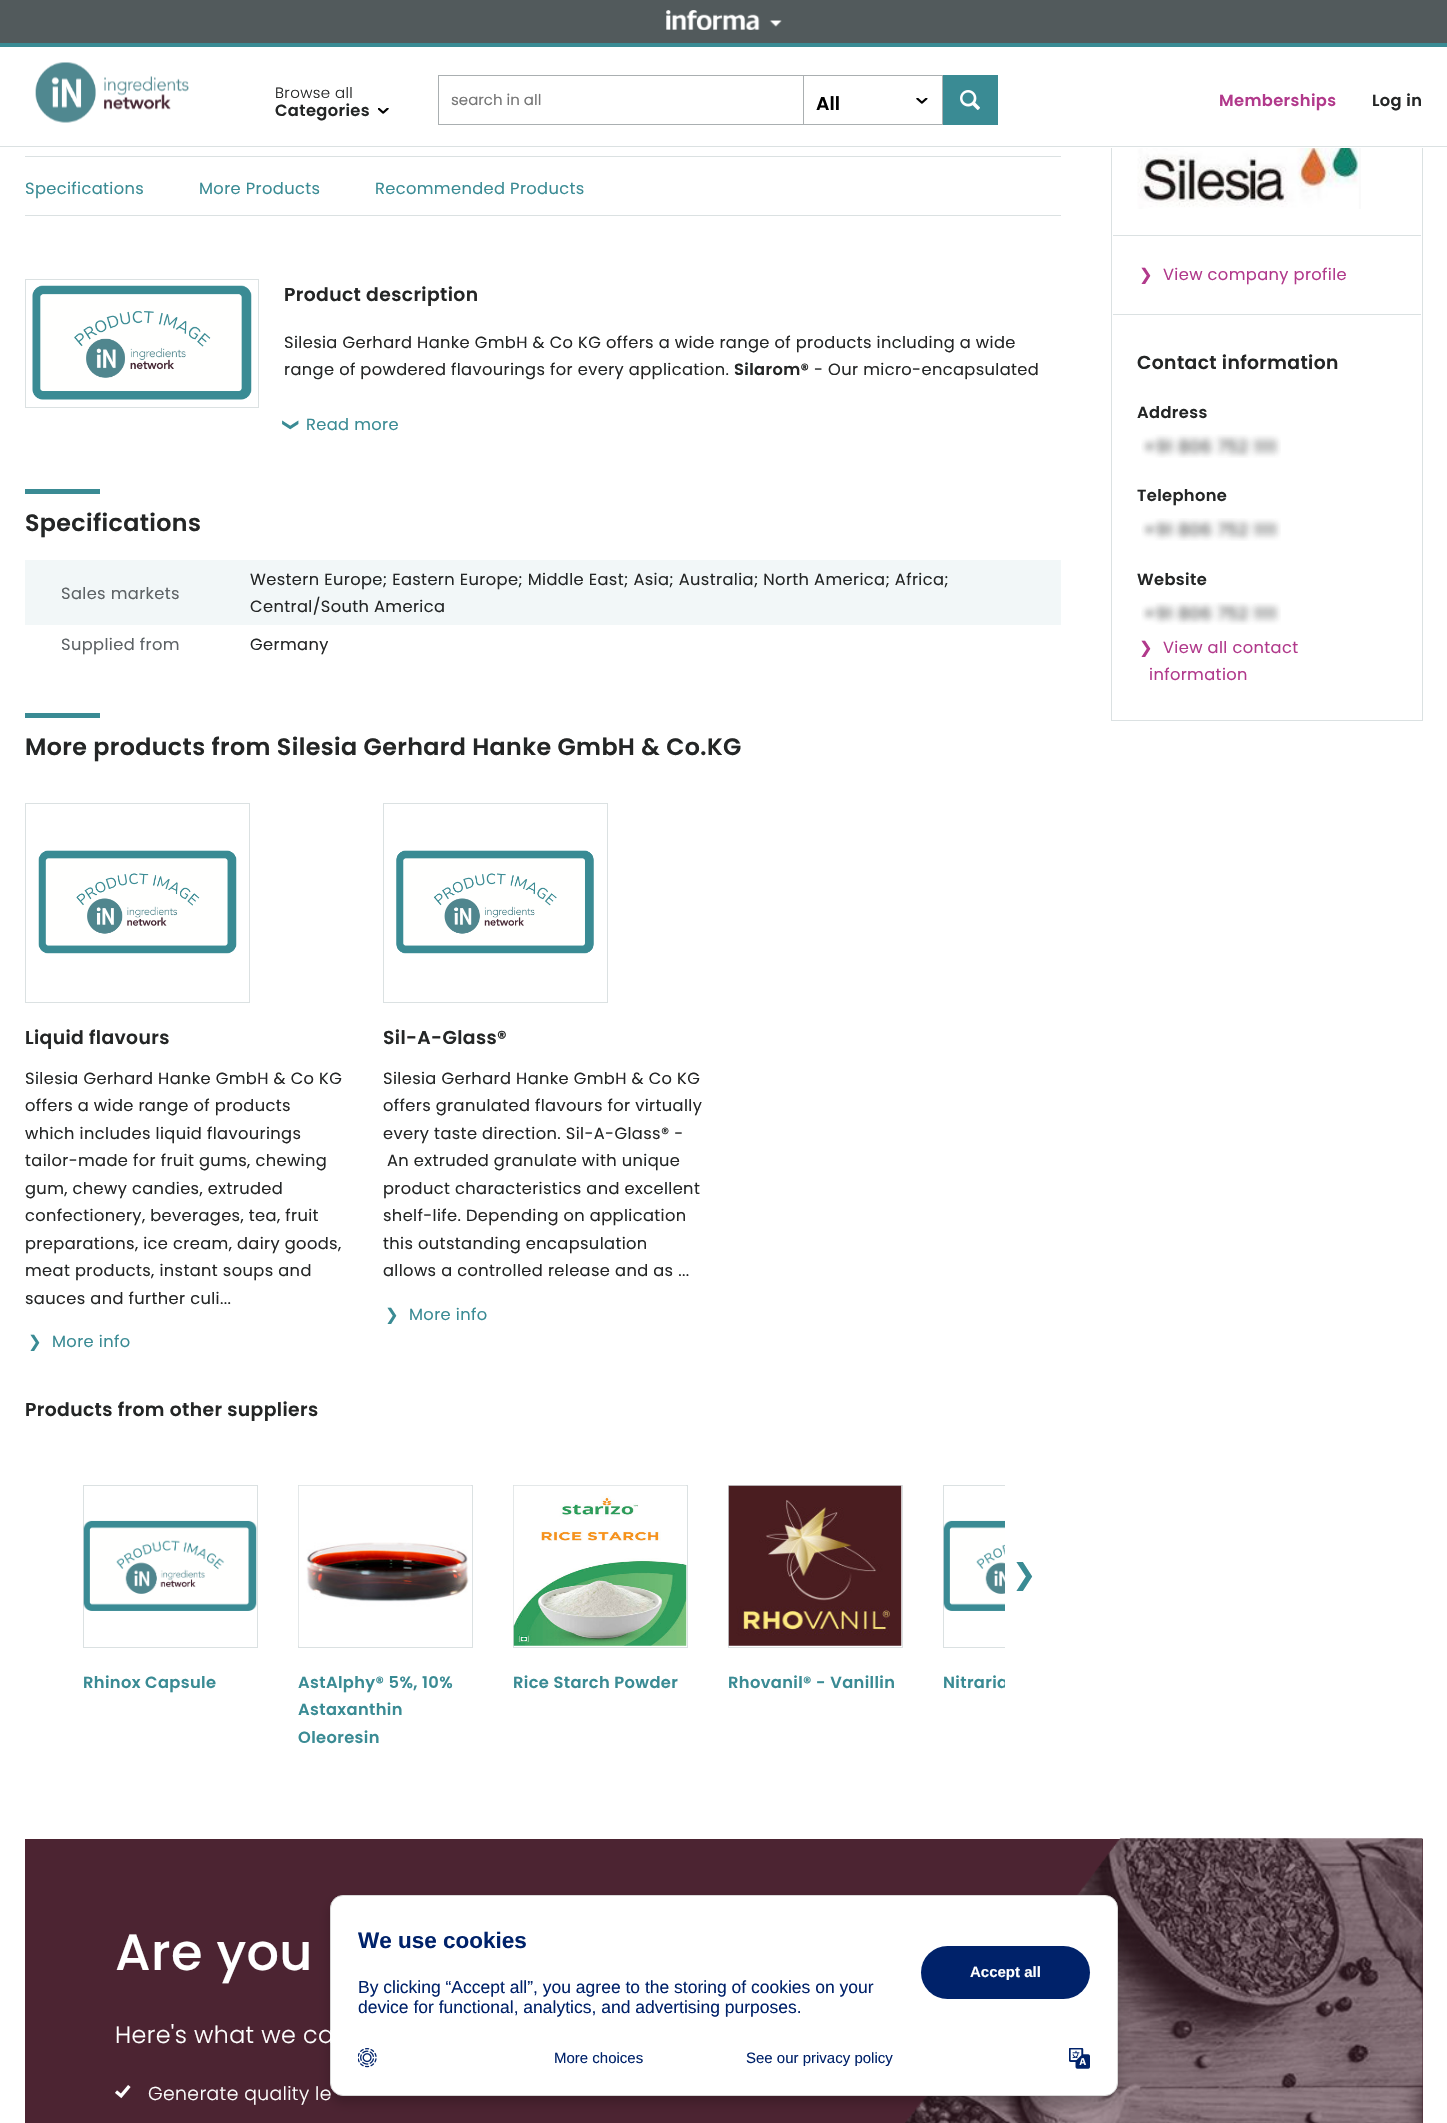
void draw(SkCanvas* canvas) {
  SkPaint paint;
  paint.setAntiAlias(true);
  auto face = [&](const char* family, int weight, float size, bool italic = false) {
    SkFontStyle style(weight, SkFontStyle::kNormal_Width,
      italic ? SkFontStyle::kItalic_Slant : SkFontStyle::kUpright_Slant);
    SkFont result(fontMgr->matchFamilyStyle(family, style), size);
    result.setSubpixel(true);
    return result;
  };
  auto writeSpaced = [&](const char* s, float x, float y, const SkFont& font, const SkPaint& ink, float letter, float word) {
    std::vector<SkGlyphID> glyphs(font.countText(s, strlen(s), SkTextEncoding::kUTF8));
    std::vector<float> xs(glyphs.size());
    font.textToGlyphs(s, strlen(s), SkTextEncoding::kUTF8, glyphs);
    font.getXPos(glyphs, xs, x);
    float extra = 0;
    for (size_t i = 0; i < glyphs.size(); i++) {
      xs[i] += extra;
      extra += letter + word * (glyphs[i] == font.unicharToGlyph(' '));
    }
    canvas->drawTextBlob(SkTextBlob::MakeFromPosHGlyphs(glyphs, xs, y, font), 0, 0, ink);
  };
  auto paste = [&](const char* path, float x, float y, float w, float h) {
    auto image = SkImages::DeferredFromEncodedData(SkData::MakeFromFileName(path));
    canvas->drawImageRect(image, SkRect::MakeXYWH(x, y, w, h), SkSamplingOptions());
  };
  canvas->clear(0xffffffff);
  paint.setStroke(true);
  paint.setStrokeWidth(1);
  paint.setColor(0xffdbe1e2);
  canvas->drawRect(SkRect::MakeXYWH(1111.5f, 101.5f, 311, 619), paint);
  paint.setStroke(false);
  {
    const struct { float x, y, w, h; SkColor color; } items[] = {
      {1111, 101, 312, 47, 0xffffffff},
      {0, 146, 1447, 1, 0xffdbe1e2},
      {0, 0, 1447, 43, 0xff525a5c},
      {0, 43, 1447, 4, 0xff3a8b94},
    };
    for (auto [x, y, w, h, color] : items) {
      paint.setColor(color);
      canvas->drawRect(SkRect::MakeXYWH(x, y, w, h), paint);
    }
  }
  paste("img/1.png", 666, 10, 116, 20);
  paste("img/2.png", 35, 62, 154, 61);
  paste("img/3.png", 378, 108, 11, 6);
  paint.setStroke(true);
  paint.setColor(0xffaaafb1);
  canvas->drawRect(SkRect::MakeXYWH(438.5f, 75.5f, 559, 49), paint);
  paste("img/4.png", 916, 98, 12, 6);
  canvas->drawRect(SkRect::MakeXYWH(803.5f, 75.5f, 139, 49), paint);
  paint.setStroke(false);
  paint.setColor(0xff3a8b94);
  canvas->drawRect(SkRect::MakeXYWH(943, 75, 55, 50), paint);
  paste("img/5.png", 960, 90, 20, 20);
  paint.setColor(0xffdbe1e2);
  canvas->drawRect(SkRect::MakeXYWH(25, 156, 1036, 1), paint);
  canvas->drawRect(SkRect::MakeXYWH(25, 215, 1036, 1), paint);
  paint.setStroke(true);
  canvas->drawRect(SkRect::MakeXYWH(25.5f, 279.5f, 233, 128), paint);
  paste("img/6.png", 32, 285, 220, 115);
  paint.setStroke(false);
  {
    const struct { float x, y, w, h; SkColor color; } items[] = {
      {25, 489, 75, 5, 0xff3a8b94},
      {25, 560, 1036, 65, 0xfff2f7f8},
      {25, 713, 75, 5, 0xff3a8b94},
    };
    for (auto [x, y, w, h, color] : items) {
      paint.setColor(color);
      canvas->drawRect(SkRect::MakeXYWH(x, y, w, h), paint);
    }
  }
  paint.setStroke(true);
  paint.setColor(0xffdbe1e2);
  canvas->drawRect(SkRect::MakeXYWH(25.5f, 803.5f, 224, 199), paint);
  paste("img/7.png", 38, 850, 199, 104);
  canvas->drawRect(SkRect::MakeXYWH(383.5f, 803.5f, 224, 199), paint);
  paste("img/8.png", 396, 850, 198, 104);
  canvas->drawRect(SkRect::MakeXYWH(83.5f, 1485.5f, 174, 162), paint);
  paste("img/9.png", 83, 1520, 174, 91);
  canvas->drawRect(SkRect::MakeXYWH(298.5f, 1485.5f, 174, 162), paint);
  paste("img/10.png", 298, 1485, 173, 161);
  canvas->drawRect(SkRect::MakeXYWH(513.5f, 1485.5f, 174, 162), paint);
  paste("img/11.png", 513, 1485, 174, 161);
  canvas->drawRect(SkRect::MakeXYWH(728.5f, 1485.5f, 174, 162), paint);
  paste("img/12.png", 728, 1485, 174, 161);
  canvas->save();
  canvas->clipRect(SkRect::MakeXYWH(81, 1484, 924, 261));
  canvas->drawRect(SkRect::MakeXYWH(943.5f, 1485.5f, 174, 162), paint);
  canvas->restore();
  paste("img/13.png", 943, 1520, 62, 91);
  paint.setStroke(false);
  canvas->drawRect(SkRect::MakeXYWH(1113, 235, 308, 1), paint);
  paste("img/14.png", 1137, 148, 224, 61);
  canvas->drawRect(SkRect::MakeXYWH(1113, 314, 308, 1), paint);
  paste("img/15.png", 1141, 434, 140, 24);
  paste("img/16.png", 1141, 518, 140, 23);
  paste("img/17.png", 1141, 602, 140, 23);
  paint.setColor(0xff4c2432);
  canvas->drawRect(SkRect::MakeXYWH(25, 1839, 1398, 284), paint);
  paste("img/18.png", 905, 1838, 518, 285);
  paste("img/19.png", 115, 2085, 16, 14);
  paint.setColor(0x33000000);
  paint.setMaskFilter(SkMaskFilter::MakeBlur(kNormal_SkBlurStyle, 6));
  canvas->drawRoundRect(SkRect::MakeXYWH(330, 1901, 788, 202), 13, 13, paint);
  paint.setMaskFilter(nullptr);
  paint.setColor(0xffffffff);
  canvas->drawRoundRect(SkRect::MakeXYWH(330.5f, 1895.5f, 787, 200), 12.5f, 12.5f, paint);
  paint.setStroke(true);
  paint.setColor(0xffd8d8d8);
  canvas->drawRoundRect(SkRect::MakeXYWH(330.5f, 1895.5f, 787, 200), 12.5f, 12.5f, paint);
  paint.setStroke(false);
  paint.setColor(0xff00226a);
  canvas->drawRoundRect(SkRect::MakeXYWH(921, 1946, 169, 53), 26.5f, 26.5f, paint);
  paste("img/20.png", 358, 2048, 19, 20);
  paste("img/21.png", 1069, 2048, 21, 21);
  auto f0 = face("Poppins", 300, 15);
  paint.setColor(0xff242626);
  writeSpaced("Browse all", 275, 98, f0, paint, 0.38f, 0);
  auto f1 = face("Poppins", 600, 16.25f);
  writeSpaced("Categories", 275, 116, f1, paint, 0.38f, 0);
  auto f2 = face("Poppins", 400, 15);
  paint.setColor(0xff757575);
  canvas->drawString("search in all", 451, 105, f2, paint);
  auto f3 = face("Poppins", 600, 18.75f);
  paint.setColor(0xff000000);
  canvas->drawString("All", 816, 110, f3, paint);
  paint.setColor(0xffb1398b);
  writeSpaced("Memberships", 1219, 106, f1, paint, 0.38f, 0);
  paint.setColor(0xff242626);
  writeSpaced("Log in", 1372, 106, f1, paint, 0.38f, 0);
  auto f4 = face("Poppins", 400, 16.25f);
  paint.setColor(0xff3a8b94);
  {
    const struct { const char* s; float x, y; } items[] = {
      {"Specifications", 25, 194},
      {"More Products", 199, 194},
      {"Recommended Products", 375, 194},
    };
    for (auto [s, x, y] : items) {
      writeSpaced(s, x, y, f4, paint, 0.38f, 0);
    }
  }
  paint.setColor(0xff242626);
  writeSpaced("Product description", 284, 301, f3, paint, 0.38f, 0);
  writeSpaced("Silesia Gerhard Hanke GmbH & Co KG offers a wide range of products including a wide", 284, 348, f4, paint, 0.38f, 0);
  writeSpaced("range of powdered flavourings for every application.", 284, 375, f4, paint, 0.38f, 0);
  writeSpaced("Silarom®", 734, 375, f1, paint, 0.38f, 0);
  writeSpaced("- Our micro-encapsulated", 814, 375, f4, paint, 0.38f, 0);
  {
    const SkColor colors[] = {0x66ffffff, 0xffffffff};
    const float stops[] = {0, 1};
    const SkPoint ends[] = {{673, 379}, {673, 409}};
    paint.setShader(SkGradientShader::MakeLinear(ends, colors, stops, 2, SkTileMode::kClamp));
    paint.setAlpha(255);
  }
  canvas->drawRect(SkRect::MakeXYWH(316, 379, 651, 1), paint);
  auto f5 = face("DejaVu Sans", 400, 16.25f);
  paint.setShader(nullptr);
  paint.setColor(0xff3a8b94);
  canvas->save();
  canvas->rotate(90, 286, 418);
  writeSpaced("❯", 286, 418, f5, paint, 0.38f, 0);
  canvas->restore();
  writeSpaced("Read more", 306, 430, f4, paint, 0.38f, 0);
  auto f6 = face("Poppins", 600, 23.75f);
  paint.setColor(0xff242626);
  writeSpaced("Specifications", 25, 531, f6, paint, 0.38f, 0);
  paint.setColor(0xff5d6265);
  writeSpaced("Sales markets", 61, 599, f4, paint, 0.38f, 0);
  paint.setColor(0xff242626);
  writeSpaced("Western Europe; Eastern Europe; Middle East; Asia; Australia; North America; Africa;", 250, 585, f4, paint, 0.38f, 0);
  writeSpaced("Central/South America", 250, 612, f4, paint, 0.38f, 0);
  paint.setColor(0xff5d6265);
  writeSpaced("Supplied from", 61, 650, f4, paint, 0.38f, 0);
  paint.setColor(0xff242626);
  writeSpaced("Germany", 250, 650, f4, paint, 0.38f, 0);
  writeSpaced("More products from Silesia Gerhard Hanke GmbH & Co.KG", 25, 755, f6, paint, 0.38f, 0);
  writeSpaced("Liquid flavours", 25, 1044, f3, paint, 0.38f, 0);
  {
    const struct { const char* s; float x, y; } items[] = {
      {"Silesia Gerhard Hanke GmbH & Co KG", 25, 1084},
      {"offers a wide range of products", 25, 1111},
      {"which includes liquid flavourings", 25, 1139},
      {"tailor-made for fruit gums, chewing", 25, 1166},
      {"gum, chewy candies, extruded", 25, 1194},
      {"confectionery, beverages, tea, fruit", 25, 1221},
      {"preparations, ice cream, dairy goods,", 25, 1249},
      {"meat products, instant soups and", 25, 1276},
      {"sauces and further culi...", 25, 1304},
    };
    for (auto [s, x, y] : items) {
      writeSpaced(s, x, y, f4, paint, 0.38f, 0);
    }
  }
  paint.setColor(0xff3a8b94);
  writeSpaced("❯", 28, 1347, f5, paint, 0.38f, 0);
  writeSpaced("More info", 52, 1347, f4, paint, 0.38f, 0);
  paint.setColor(0xff242626);
  writeSpaced("Sil-A-Glass®", 383, 1044, f3, paint, 0.38f, 0);
  {
    const struct { const char* s; float x, y; } items[] = {
      {"Silesia Gerhard Hanke GmbH & Co KG", 383, 1084},
      {"offers granulated flavours for virtually", 383, 1111},
      {"every taste direction. Sil-A-Glass® -", 383, 1139},
      {"An extruded granulate with unique", 387, 1166},
      {"product characteristics and excellent", 383, 1194},
      {"shelf-life. Depending on application", 383, 1221},
      {"this outstanding encapsulation", 383, 1249},
      {"allows a controlled release and as ...", 383, 1276},
    };
    for (auto [s, x, y] : items) {
      writeSpaced(s, x, y, f4, paint, 0.38f, 0);
    }
  }
  paint.setColor(0xff3a8b94);
  writeSpaced("❯", 385, 1320, f5, paint, 0.38f, 0);
  writeSpaced("More info", 409, 1320, f4, paint, 0.38f, 0);
  paint.setColor(0xff242626);
  writeSpaced("Products from other suppliers", 25, 1416, f3, paint, 0.38f, 0);
  auto f7 = face("DejaVu Sans", 400, 29);
  paint.setColor(0xff3a8b94);
  writeSpaced("❯", 1012, 1584, f7, paint, 0.38f, 0);
  {
    const struct { const char* s; float x, y; } items[] = {
      {"Rhinox Capsule", 83, 1688},
      {"AstAlphy® 5%, 10%", 298, 1688},
      {"Astaxanthin", 298, 1715},
      {"Oleoresin", 298, 1743},
      {"Rice Starch Powder", 513, 1688},
      {"Rhovanil® - Vanillin", 728, 1688},
    };
    for (auto [s, x, y] : items) {
      writeSpaced(s, x, y, f1, paint, 0.38f, 0);
    }
  }
  canvas->save();
  canvas->clipRect(SkRect::MakeXYWH(81, 1484, 924, 261));
  writeSpaced("Nitraria", 943, 1688, f1, paint, 0.38f, 0);
  canvas->restore();
  paint.setColor(0xffb1398b);
  writeSpaced("❯", 1139, 280, f5, paint, 0.38f, 0);
  writeSpaced("View company profile", 1163, 280, f4, paint, 0.38f, 0);
  paint.setColor(0xff242626);
  writeSpaced("Contact information", 1137, 369, f3, paint, 0.38f, 0);
  {
    const struct { const char* s; float x, y; } items[] = {
      {"Address", 1137, 418},
      {"Telephone", 1137, 501},
      {"Website", 1137, 585},
    };
    for (auto [s, x, y] : items) {
      writeSpaced(s, x, y, f1, paint, 0.38f, 0);
    }
  }
  paint.setColor(0xffb1398b);
  writeSpaced("❯", 1139, 653, f5, paint, 0.38f, 0);
  writeSpaced("View all contact", 1163, 653, f4, paint, 0.38f, 0);
  writeSpaced("information", 1149, 680, f4, paint, 0.38f, 0);
  auto f8 = face("Poppins", 500, 51);
  paint.setColor(0xffffffff);
  writeSpaced("Are you", 115, 1970, f8, paint, 0.38f, 0);
  auto f9 = face("Poppins", 300, 23.75f);
  writeSpaced("Here's what we ca", 115, 2043, f9, paint, 0.38f, 0);
  auto f10 = face("Poppins", 300, 18.75f);
  writeSpaced("Generate quality le", 148, 2100, f10, paint, 0.38f, 0);
  auto f11 = face("Liberation Sans", 700, 22.5f);
  paint.setColor(0xff00226a);
  canvas->drawString("We use cookies", 358, 1948, f11, paint);
  auto f12 = face("Liberation Sans", 400, 17.5f);
  canvas->drawString("By clicking “Accept all”, you agree to the storing of cookies on your", 358, 1993, f12, paint);
  canvas->drawString("device for functional, analytics, and advertising purposes.", 358, 2013, f12, paint);
  auto f13 = face("Liberation Sans", 700, 15);
  paint.setColor(0xffffffff);
  canvas->drawString("Accept all", 970, 1977, f13, paint);
  auto f14 = face("Liberation Sans", 400, 15);
  paint.setColor(0xff00226a);
  canvas->drawString("More choices", 554, 2063, f14, paint);
  canvas->drawString("See our privacy policy", 746, 2063, f14, paint);
}
